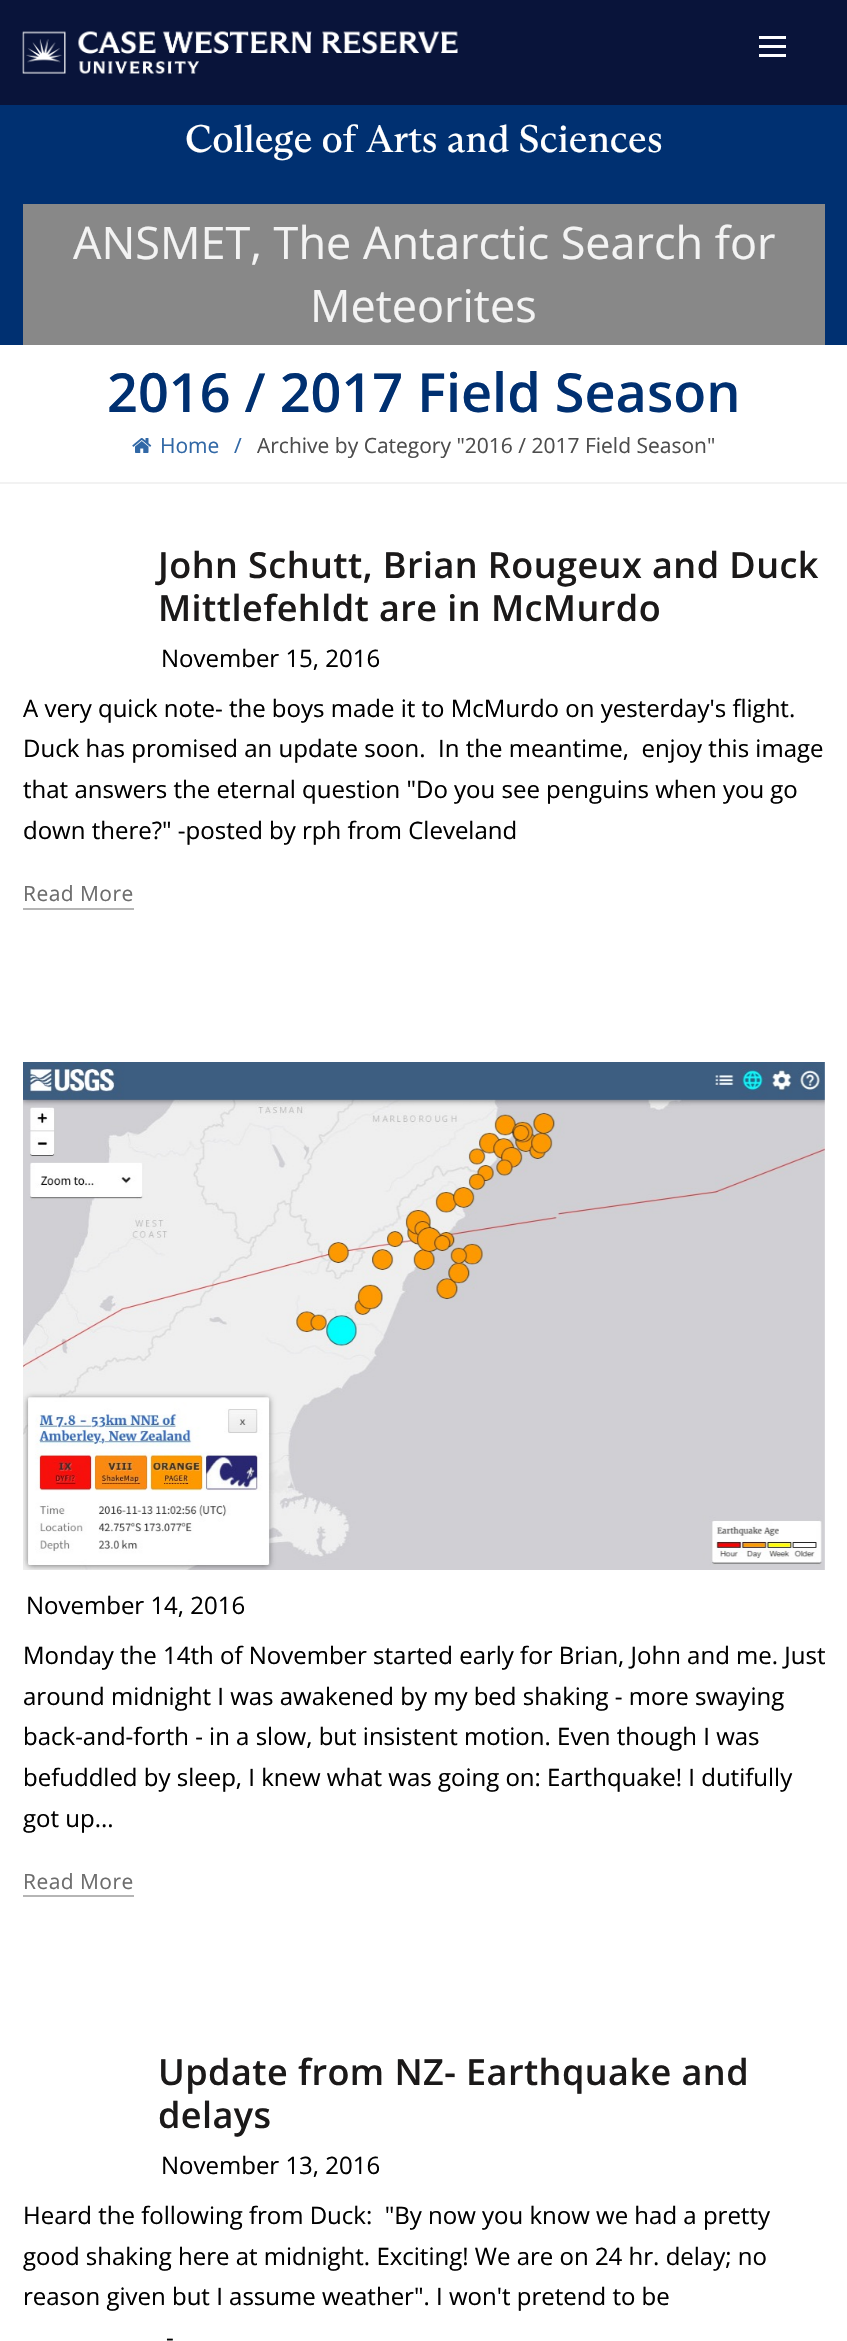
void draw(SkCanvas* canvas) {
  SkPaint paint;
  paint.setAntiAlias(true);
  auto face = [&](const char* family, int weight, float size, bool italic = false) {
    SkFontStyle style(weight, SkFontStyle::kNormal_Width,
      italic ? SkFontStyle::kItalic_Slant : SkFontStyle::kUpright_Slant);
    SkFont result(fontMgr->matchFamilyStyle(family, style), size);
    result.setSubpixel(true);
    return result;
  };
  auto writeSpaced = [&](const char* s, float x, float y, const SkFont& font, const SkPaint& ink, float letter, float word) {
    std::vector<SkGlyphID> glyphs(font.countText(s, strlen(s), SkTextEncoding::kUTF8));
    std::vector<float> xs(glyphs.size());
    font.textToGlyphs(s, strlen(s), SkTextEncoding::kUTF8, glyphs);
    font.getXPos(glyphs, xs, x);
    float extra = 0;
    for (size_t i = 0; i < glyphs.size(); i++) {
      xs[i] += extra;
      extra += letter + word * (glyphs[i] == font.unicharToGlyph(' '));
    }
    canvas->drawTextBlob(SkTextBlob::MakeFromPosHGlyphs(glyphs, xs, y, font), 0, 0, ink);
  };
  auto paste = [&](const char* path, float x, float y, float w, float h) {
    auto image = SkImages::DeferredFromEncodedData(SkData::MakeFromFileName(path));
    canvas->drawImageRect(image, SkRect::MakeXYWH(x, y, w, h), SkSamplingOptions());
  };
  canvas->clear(0xffffffff);
  paint.setColor(0xff09143a);
  canvas->drawRect(SkRect::MakeXYWH(0, 0, 847, 105), paint);
  paste("img/1.png", 22, 31, 436, 43);
  {
    const struct { float x, y, w, h; SkColor color; } items[] = {
      {759, 45, 27, 3, 0xffffffff},
      {759, 36, 27, 3, 0xffffffff},
      {759, 54, 27, 3, 0xffffffff},
      {0, 105, 847, 240, 0xff003071},
      {23, 204, 802, 141, 0xff888888},
      {0, 482, 847, 2, 0xfff2f2f2},
    };
    for (auto [x, y, w, h, color] : items) {
      paint.setColor(color);
      canvas->drawRect(SkRect::MakeXYWH(x, y, w, h), paint);
    }
  }
  paste("img/2.png", 132, 438, 20, 15);
  paint.setColor(0xffb5b5b5);
  canvas->drawRect(SkRect::MakeXYWH(23, 908, 111, 2), paint);
  paste("img/3.png", 23, 1062, 802, 508);
  canvas->drawRect(SkRect::MakeXYWH(23, 1895, 111, 2), paint);
  auto f0 = face("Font", 400, 38.4f);
  paint.setColor(0xffffffff);
  canvas->drawString("College of Arts and Sciences", 185, 152, f0, paint);
  auto f1 = face("Open Sans", 400, 45);
  paint.setColor(0xfff3f3f3);
  canvas->drawString("ANSMET, The Antarctic Search for", 73, 259, f1, paint);
  canvas->drawString("Meteorites", 310, 322, f1, paint);
  auto f2 = face("Open Sans", 600, 54);
  paint.setColor(0xff003071);
  canvas->drawString("2016 / 2017 Field Season", 107, 412, f2, paint);
  auto f3 = face("Open Sans", 400, 21);
  paint.setColor(0xff3168a6);
  canvas->drawString("Home", 160, 453, f3, paint);
  canvas->drawString("/", 234, 453, f3, paint);
  paint.setColor(0xff4d4d4d);
  canvas->drawString("Archive by Category \"2016 / 2017 Field Season\"", 257, 453, f3, paint);
  auto f4 = face("Open Sans", 600, 36);
  paint.setColor(0xff1b1919);
  writeSpaced("John Schutt, Brian Rougeux and Duck", 158, 578, f4, paint, 0.45f, 0);
  writeSpaced("Mittlefehldt are in McMurdo", 158, 621, f4, paint, 0.45f, 0);
  auto f5 = face("Open Sans", 400, 24);
  paint.setColor(0xff000000);
  {
    const struct { const char* s; float x, y; } items[] = {
      {"November 15, 2016", 161, 667},
      {"A very quick note- the boys made it to McMurdo on yesterday's flight.", 23, 717},
      {"Duck has promised an update soon.  In the meantime,  enjoy this image", 23, 757},
      {"that answers the eternal question \"Do you see penguins when you go", 23, 798},
      {"down there?\" -posted by rph from Cleveland", 23, 839},
    };
    for (auto [s, x, y] : items) {
      canvas->drawString(s, x, y, f5, paint);
    }
  }
  paint.setColor(0xff6d6d6d);
  writeSpaced("Read More", 23, 901, f3, paint, 0.45f, 0);
  paint.setColor(0xff000000);
  {
    const struct { const char* s; float x, y; } items[] = {
      {"November 14, 2016", 26, 1614},
      {"Monday the 14th of November started early for Brian, John and me. Just", 23, 1664},
      {"around midnight I was awakened by my bed shaking - more swaying", 23, 1705},
      {"back-and-forth - in a slow, but insistent motion. Even though I was", 23, 1745},
      {"befuddled by sleep, I knew what was going on: Earthquake! I dutifully", 23, 1786},
      {"got up...", 23, 1827},
    };
    for (auto [s, x, y] : items) {
      canvas->drawString(s, x, y, f5, paint);
    }
  }
  paint.setColor(0xff6d6d6d);
  writeSpaced("Read More", 23, 1889, f3, paint, 0.45f, 0);
  paint.setColor(0xff1b1919);
  writeSpaced("Update from NZ- Earthquake and", 158, 2085, f4, paint, 0.45f, 0);
  writeSpaced("delays", 158, 2128, f4, paint, 0.45f, 0);
  paint.setColor(0xff000000);
  {
    const struct { const char* s; float x, y; } items[] = {
      {"November 13, 2016", 161, 2174},
      {"Heard the following from Duck:  \"By now you know we had a pretty", 23, 2224},
      {"good shaking here at midnight. Exciting! We are on 24 hr. delay; no", 23, 2265},
      {"reason given but I assume weather\". I won't pretend to be", 23, 2305},
      {"-", 166, 2346},
    };
    for (auto [s, x, y] : items) {
      canvas->drawString(s, x, y, f5, paint);
    }
  }
}
